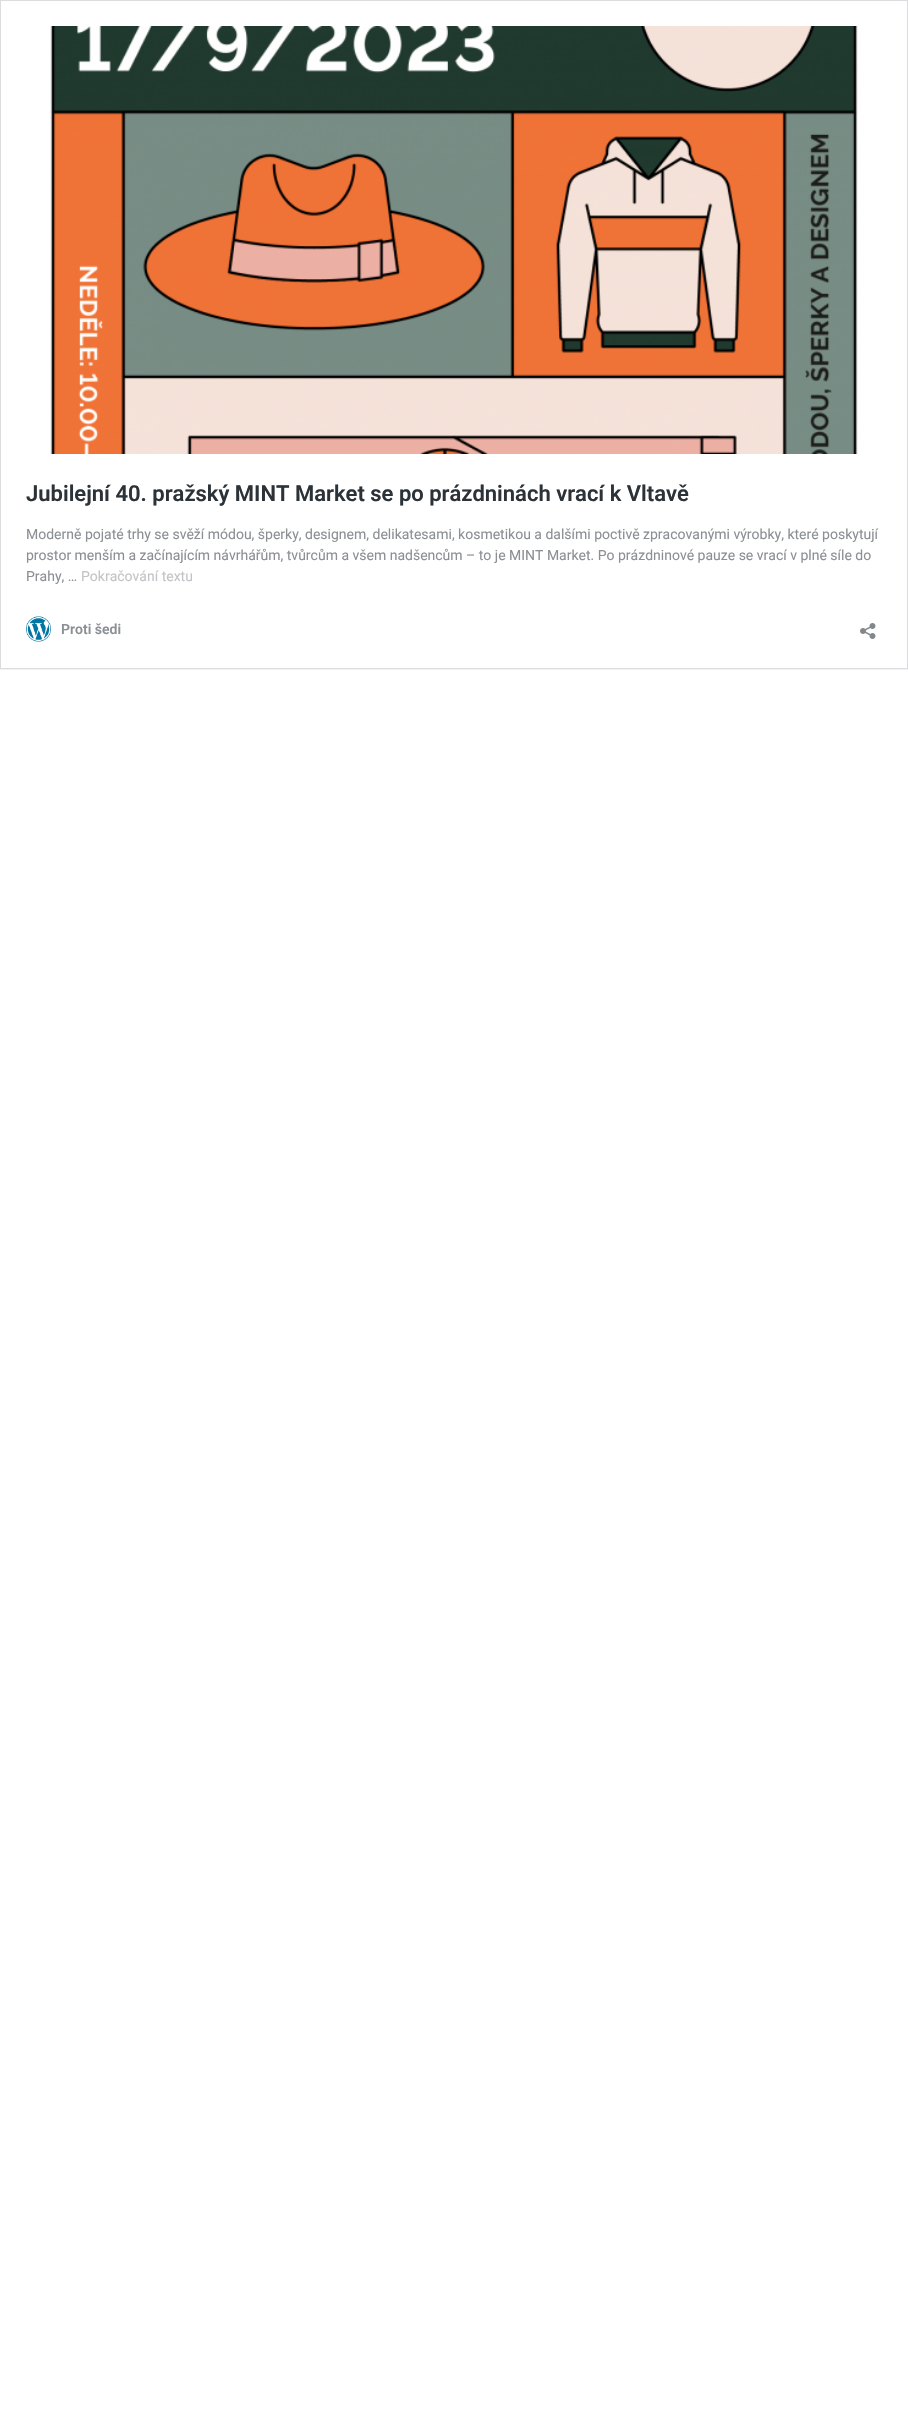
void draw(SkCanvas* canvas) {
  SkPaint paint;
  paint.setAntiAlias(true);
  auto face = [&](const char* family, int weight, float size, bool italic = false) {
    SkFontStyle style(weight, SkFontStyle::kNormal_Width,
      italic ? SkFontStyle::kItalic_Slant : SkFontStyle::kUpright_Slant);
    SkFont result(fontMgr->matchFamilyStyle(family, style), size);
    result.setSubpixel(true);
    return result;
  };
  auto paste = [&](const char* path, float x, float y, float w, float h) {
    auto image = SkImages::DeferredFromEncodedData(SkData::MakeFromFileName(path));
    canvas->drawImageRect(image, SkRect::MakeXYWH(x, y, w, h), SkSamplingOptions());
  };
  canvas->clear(0xffffffff);
  canvas->save();
  canvas->clipRect(SkRect::MakeXYWH(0, 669, 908, 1));
  paint.setColor(0x0d000000);
  paint.setMaskFilter(SkMaskFilter::MakeBlur(kNormal_SkBlurStyle, 0.5f));
  canvas->drawRect(SkRect::MakeXYWH(0, 1, 908, 669), paint);
  paint.setMaskFilter(nullptr);
  canvas->restore();
  paint.setStroke(true);
  paint.setStrokeWidth(1);
  paint.setColor(0xffdcdcde);
  canvas->drawRect(SkRect::MakeXYWH(0.5f, 0.5f, 907, 668), paint);
  paste("img/1.png", 50, 26, 808, 428);
  paste("img/2.png", 26, 616, 25, 26);
  paste("img/3.png", 860, 623, 16, 16);
  auto f0 = face("Roboto", 600, 22);
  paint.setStroke(false);
  paint.setColor(0xff2c3338);
  canvas->drawString("Jubilejní 40. pražský MINT Market se po prázdninách vrací k Vltavě", 26, 501, f0, paint);
  auto f1 = face("Roboto", 400, 14);
  paint.setColor(0xff8c8f94);
  {
    const struct { const char* s; float x, y; } items[] = {
      {"Moderně pojaté trhy se svěží módou, šperky, designem, delikatesami, kosmetikou a dalšími poctivě zpracovanými výrobky, které poskytují", 26, 539},
      {"prostor menším a začínajícím návrhářům, tvůrcům a všem nadšencům – to je MINT Market. Po prázdninové pauze se vrací v plné síle do", 26, 560},
      {"Prahy, …", 26, 581},
    };
    for (auto [s, x, y] : items) {
      canvas->drawString(s, x, y, f1, paint);
    }
  }
  paint.setColor(0xffc3c4c7);
  canvas->drawString("Pokračování textu", 81, 581, f1, paint);
  auto f2 = face("Roboto", 600, 14);
  paint.setColor(0xff8c8f94);
  canvas->drawString("Proti šedi", 61, 634, f2, paint);
}
